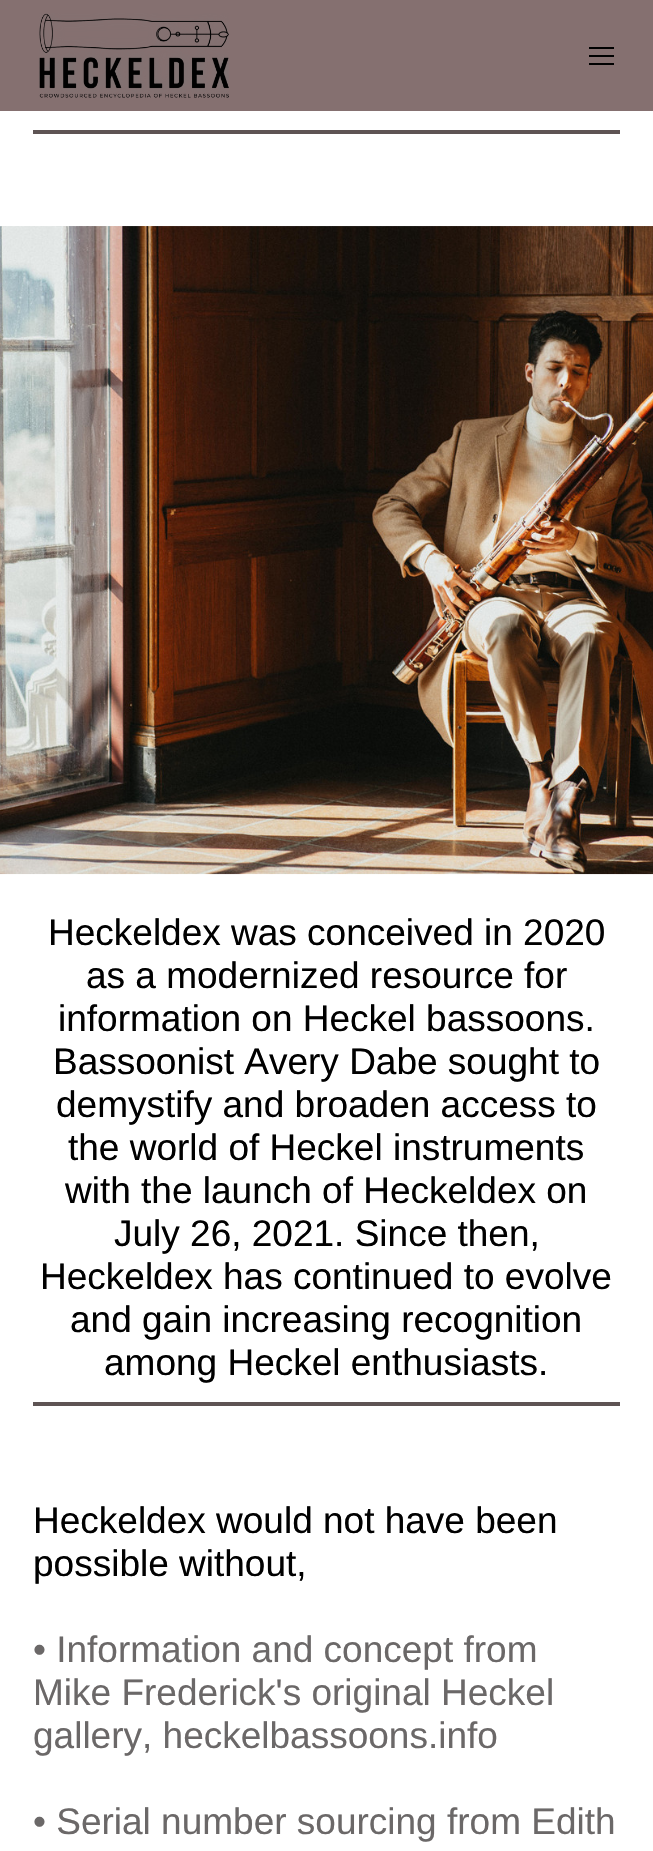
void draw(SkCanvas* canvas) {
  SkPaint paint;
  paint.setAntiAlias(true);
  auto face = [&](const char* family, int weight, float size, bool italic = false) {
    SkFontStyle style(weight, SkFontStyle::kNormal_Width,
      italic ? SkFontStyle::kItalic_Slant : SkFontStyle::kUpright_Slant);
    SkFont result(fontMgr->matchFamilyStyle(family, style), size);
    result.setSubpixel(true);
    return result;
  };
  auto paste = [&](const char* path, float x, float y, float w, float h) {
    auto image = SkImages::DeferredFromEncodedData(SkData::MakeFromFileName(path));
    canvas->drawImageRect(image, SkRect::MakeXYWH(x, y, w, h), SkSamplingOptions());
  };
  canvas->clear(0xffffffff);
  paint.setColor(0xff857070);
  canvas->drawRect(SkRect::MakeXYWH(0, 0, 653, 111), paint);
  paste("img/1.png", 39, 13, 190, 85);
  {
    const struct { float x, y, w, h; SkColor color; } items[] = {
      {589, 47, 25, 2, 0xff000000},
      {589, 55, 25, 2, 0xff000000},
      {589, 63, 25, 2, 0xff000000},
      {33, 130, 587, 4, 0xff5e5454},
    };
    for (auto [x, y, w, h, color] : items) {
      paint.setColor(color);
      canvas->drawRect(SkRect::MakeXYWH(x, y, w, h), paint);
    }
  }
  paste("img/2.png", 0, 226, 653, 649);
  canvas->drawRect(SkRect::MakeXYWH(33, 1402, 587, 4), paint);
  auto f0 = face("Liberation Sans", 400, 37);
  paint.setColor(0xff000000);
  {
    const struct { const char* s; float x, y; } items[] = {
      {"Heckeldex was conceived in 2020", 48, 945},
      {"as a modernized resource for", 86, 988},
      {"information on Heckel bassoons.", 58, 1031},
      {"Bassoonist Avery Dabe sought to", 53, 1074},
      {"demystify and broaden access to", 56, 1117},
      {"the world of Heckel instruments", 68, 1160},
      {"with the launch of Heckeldex on", 65, 1203},
      {"July 26, 2021. Since then,", 114, 1246},
      {"Heckeldex has continued to evolve", 40, 1289},
      {"and gain increasing recognition", 70, 1332},
      {"among Heckel enthusiasts.", 104, 1375},
      {"Heckeldex would not have been", 33, 1533},
      {"possible without,", 33, 1576},
    };
    for (auto [s, x, y] : items) {
      canvas->drawString(s, x, y, f0, paint);
    }
  }
  paint.setColor(0xff6b6868);
  {
    const struct { const char* s; float x, y; } items[] = {
      {"• Information and concept from", 33, 1662},
      {"Mike Frederick's original Heckel", 33, 1705},
      {"gallery, heckelbassoons.info", 33, 1748},
      {"• Serial number sourcing from Edith", 33, 1834},
    };
    for (auto [s, x, y] : items) {
      canvas->drawString(s, x, y, f0, paint);
    }
  }
}
